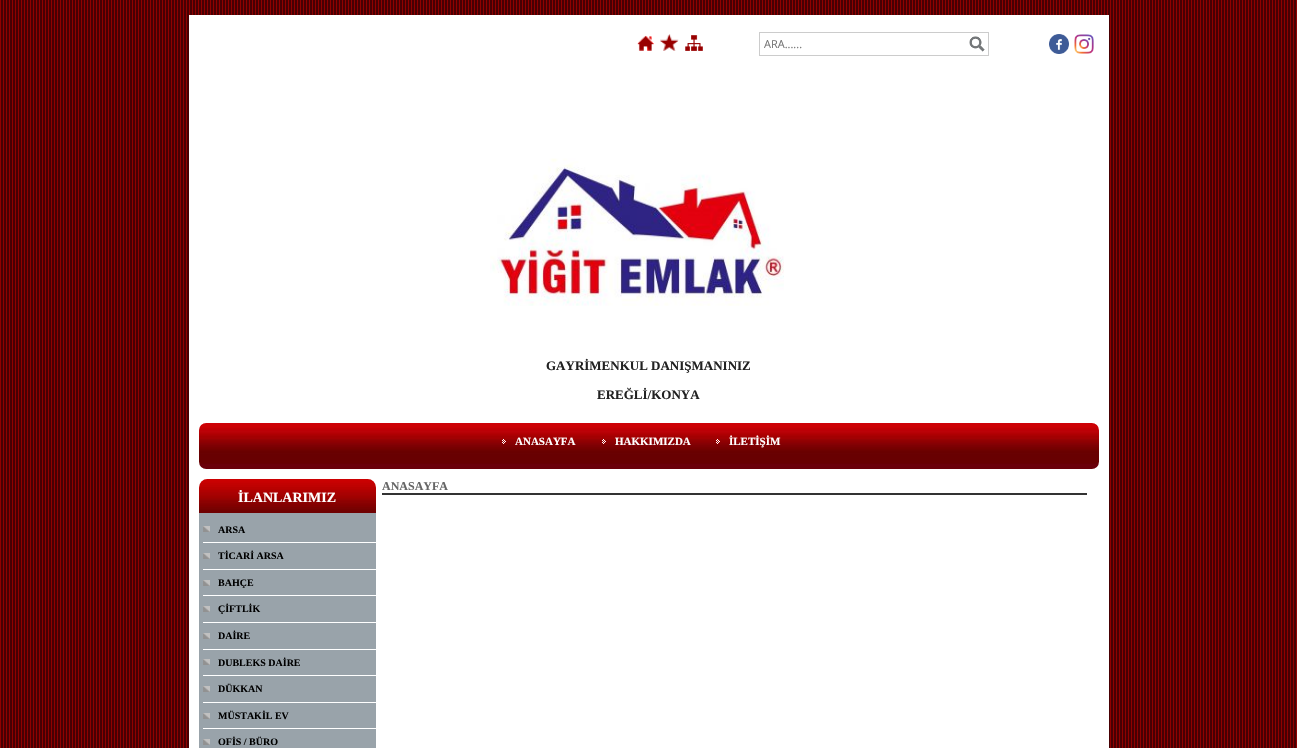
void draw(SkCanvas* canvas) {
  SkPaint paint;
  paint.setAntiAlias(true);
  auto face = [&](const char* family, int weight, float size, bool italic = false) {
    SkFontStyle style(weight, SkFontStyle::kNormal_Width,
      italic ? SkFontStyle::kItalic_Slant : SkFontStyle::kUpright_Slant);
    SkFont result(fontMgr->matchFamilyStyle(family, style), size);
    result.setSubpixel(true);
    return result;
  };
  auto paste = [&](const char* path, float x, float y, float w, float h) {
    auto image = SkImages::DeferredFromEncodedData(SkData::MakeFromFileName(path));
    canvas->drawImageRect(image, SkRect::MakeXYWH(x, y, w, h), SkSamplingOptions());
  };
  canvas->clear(0xffffffff);
  paste("img/1.png", 0, 0, 1297, 748);
  paint.setColor(0xffffffff);
  canvas->drawRect(SkRect::MakeXYWH(189, 15, 920, 733), paint);
  paste("img/2.png", 637, 35, 17, 16);
  paste("img/3.png", 660, 34, 19, 17);
  paste("img/4.png", 685, 35, 18, 16);
  paint.setStroke(true);
  paint.setStrokeWidth(1);
  paint.setColor(0xffcccccc);
  canvas->drawRect(SkRect::MakeXYWH(759.5f, 32.5f, 229, 23), paint);
  paste("img/5.png", 969, 36, 16, 16);
  paste("img/6.png", 1049, 34, 20, 20);
  paste("img/7.png", 1074, 34, 20, 20);
  paste("img/8.png", 490, 158, 294, 148);
  paste("img/9.png", 199, 423, 900, 46);
  paste("img/10.png", 502, 439, 4, 5);
  paste("img/10.png", 602, 439, 4, 5);
  paste("img/10.png", 716, 439, 4, 5);
  paint.setStroke(false);
  paint.setColor(0xff333333);
  canvas->drawRect(SkRect::MakeXYWH(382, 493, 705, 2), paint);
  paste("img/11.png", 199, 479, 177, 34);
  paint.setColor(0xff99a3aa);
  canvas->drawRect(SkRect::MakeXYWH(199, 513, 177, 235), paint);
  paste("img/12.png", 203, 526, 7, 6);
  paint.setColor(0xffffffff);
  canvas->drawRect(SkRect::MakeXYWH(203, 542, 173, 1), paint);
  paste("img/12.png", 203, 553, 7, 6);
  canvas->drawRect(SkRect::MakeXYWH(203, 569, 173, 1), paint);
  paste("img/12.png", 203, 580, 7, 6);
  canvas->drawRect(SkRect::MakeXYWH(203, 595, 173, 1), paint);
  paste("img/12.png", 203, 606, 7, 6);
  canvas->drawRect(SkRect::MakeXYWH(203, 622, 173, 1), paint);
  paste("img/12.png", 203, 633, 7, 6);
  canvas->drawRect(SkRect::MakeXYWH(203, 649, 173, 1), paint);
  paste("img/12.png", 203, 659, 7, 6);
  canvas->drawRect(SkRect::MakeXYWH(203, 675, 173, 1), paint);
  paste("img/12.png", 203, 686, 7, 6);
  canvas->drawRect(SkRect::MakeXYWH(203, 702, 173, 1), paint);
  paste("img/12.png", 203, 713, 7, 6);
  canvas->drawRect(SkRect::MakeXYWH(203, 728, 173, 1), paint);
  paste("img/12.png", 203, 739, 7, 6);
  auto f0 = face("Open Sans", 400, 11);
  paint.setColor(0xff757575);
  canvas->drawString("ARA......", 764, 48, f0, paint);
  auto f1 = face("Liberation Serif", 700, 13);
  paint.setColor(0xff222222);
  canvas->drawString("GAYRİMENKUL DANIŞMANINIZ", 546, 370, f1, paint);
  canvas->drawString("EREĞLİ/KONYA", 597, 399, f1, paint);
  auto f2 = face("Liberation Serif", 700, 11);
  paint.setColor(0xffffffff);
  {
    const struct { const char* s; float x, y; } items[] = {
      {"ANASAYFA", 515, 445},
      {"HAKKIMIZDA", 615, 445},
      {"İLETİŞİM", 729, 445},
    };
    for (auto [s, x, y] : items) {
      canvas->drawString(s, x, y, f2, paint);
    }
  }
  auto f3 = face("Liberation Serif", 700, 12);
  paint.setColor(0xff666666);
  canvas->drawString("ANASAYFA", 382, 490, f3, paint);
  auto f4 = face("Liberation Serif", 700, 14);
  paint.setColor(0xffffffff);
  canvas->drawString("İLANLARIMIZ", 238, 502, f4, paint);
  auto f5 = face("Liberation Serif", 700, 10);
  paint.setColor(0xff000000);
  {
    const struct { const char* s; float x, y; } items[] = {
      {"ARSA", 218, 533},
      {"TİCARİ ARSA", 218, 559},
      {"BAHÇE", 218, 586},
      {"ÇİFTLİK", 218, 612},
      {"DAİRE", 218, 639},
      {"DUBLEKS DAİRE", 218, 666},
      {"DÜKKAN", 218, 692},
      {"MÜSTAKİL EV", 218, 719},
      {"OFİS / BÜRO", 218, 745},
    };
    for (auto [s, x, y] : items) {
      canvas->drawString(s, x, y, f5, paint);
    }
  }
}
